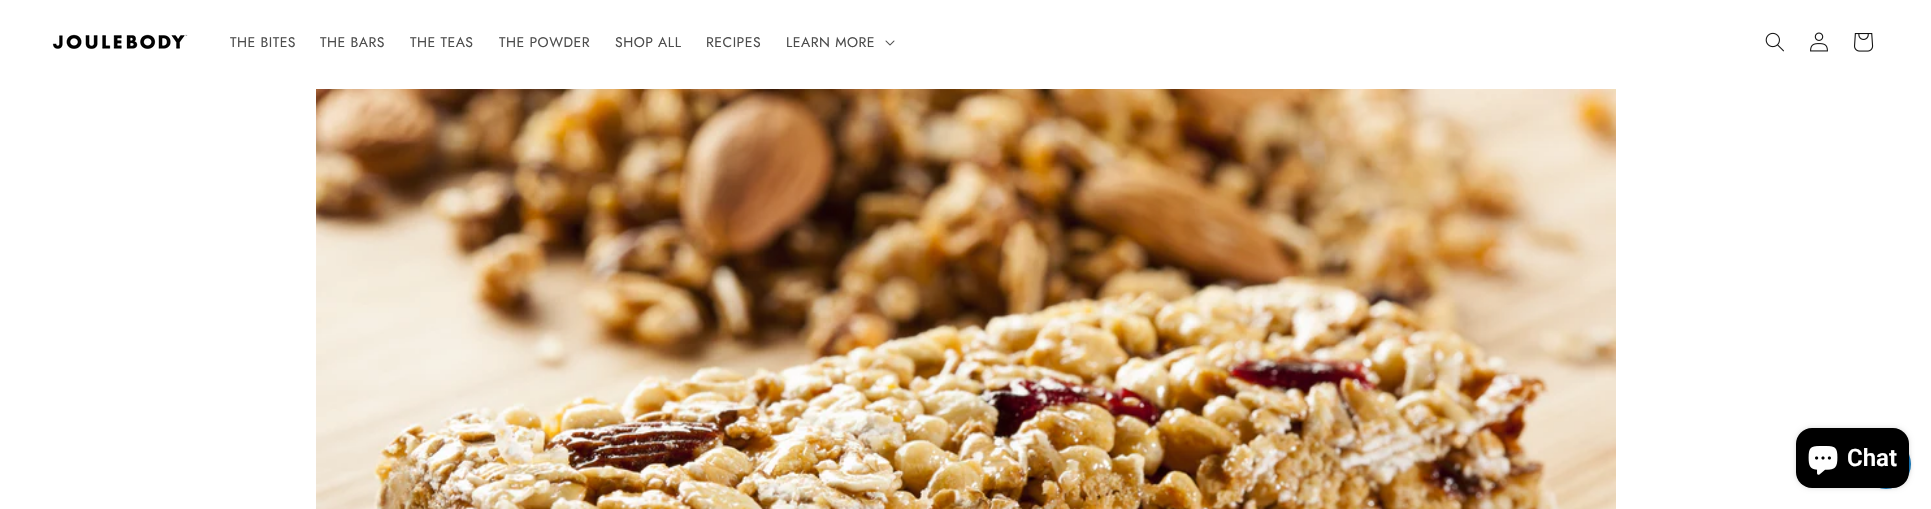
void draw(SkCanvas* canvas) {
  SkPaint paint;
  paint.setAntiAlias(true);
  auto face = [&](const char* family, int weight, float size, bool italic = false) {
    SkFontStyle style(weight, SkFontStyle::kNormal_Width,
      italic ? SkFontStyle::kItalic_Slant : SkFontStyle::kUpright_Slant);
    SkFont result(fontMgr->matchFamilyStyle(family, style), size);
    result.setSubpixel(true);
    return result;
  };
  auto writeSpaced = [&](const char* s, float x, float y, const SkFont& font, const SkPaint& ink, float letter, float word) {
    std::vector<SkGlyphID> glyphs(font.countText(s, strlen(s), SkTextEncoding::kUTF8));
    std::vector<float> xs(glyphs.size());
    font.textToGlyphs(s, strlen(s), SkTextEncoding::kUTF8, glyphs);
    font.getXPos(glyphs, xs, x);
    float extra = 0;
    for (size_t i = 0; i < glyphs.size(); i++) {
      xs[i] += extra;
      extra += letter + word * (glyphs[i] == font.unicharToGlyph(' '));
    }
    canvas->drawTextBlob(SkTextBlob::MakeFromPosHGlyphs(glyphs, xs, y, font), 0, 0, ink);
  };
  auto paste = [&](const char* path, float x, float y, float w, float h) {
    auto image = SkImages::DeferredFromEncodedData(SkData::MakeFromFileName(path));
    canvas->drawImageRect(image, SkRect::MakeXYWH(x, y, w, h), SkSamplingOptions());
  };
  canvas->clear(0xffffffff);
  paste("img/1.png", 52, 34, 136, 15);
  paste("img/2.png", 885, 40, 10, 6);
  paste("img/3.png", 1765, 32, 19, 20);
  paste("img/4.png", 1810, 32, 18, 20);
  paste("img/5.png", 1854, 33, 20, 19);
  paste("img/6.png", 316, 89, 1300, 420);
  paint.setColor(0x1a000000);
  paint.setMaskFilter(SkMaskFilter::MakeBlur(kNormal_SkBlurStyle, 1.5f));
  canvas->drawRoundRect(SkRect::MakeXYWH(1861, 439, 50, 50), 25, 25, paint);
  paint.setMaskFilter(nullptr);
  paint.setColor(0xff1878b9);
  canvas->drawCircle(1886, 464, 25, paint);
  paint.setStroke(true);
  paint.setStrokeWidth(2);
  paint.setColor(0xffffffff);
  canvas->drawCircle(1904, 446, 6, paint);
  paint.setStroke(false);
  paint.setColor(0x26000000);
  paint.setMaskFilter(SkMaskFilter::MakeBlur(kNormal_SkBlurStyle, 2.5f));
  canvas->drawRoundRect(SkRect::MakeXYWH(1796, 428, 113, 60), 16, 16, paint);
  paint.setMaskFilter(nullptr);
  paint.setColor(0xff000000);
  canvas->drawRoundRect(SkRect::MakeXYWH(1796, 428, 113, 60), 16, 16, paint);
  paste("img/7.png", 1808, 446, 30, 29);
  auto f0 = face("Jost", 400, 14);
  paint.setColor(0xff4d4d4d);
  {
    const struct { const char* s; float x, y; } items[] = {
      {"THE BITES", 230, 47},
      {"THE BARS", 320, 47},
      {"THE TEAS", 410, 47},
      {"THE POWDER", 499, 47},
      {"SHOP ALL", 615, 47},
      {"RECIPES", 706, 47},
      {"LEARN MORE", 786, 47},
    };
    for (auto [s, x, y] : items) {
      writeSpaced(s, x, y, f0, paint, 0.5f, 0);
    }
  }
  auto f1 = face("Roboto", 600, 24);
  paint.setColor(0xffffffff);
  canvas->drawString("Chat", 1847, 466, f1, paint);
}
